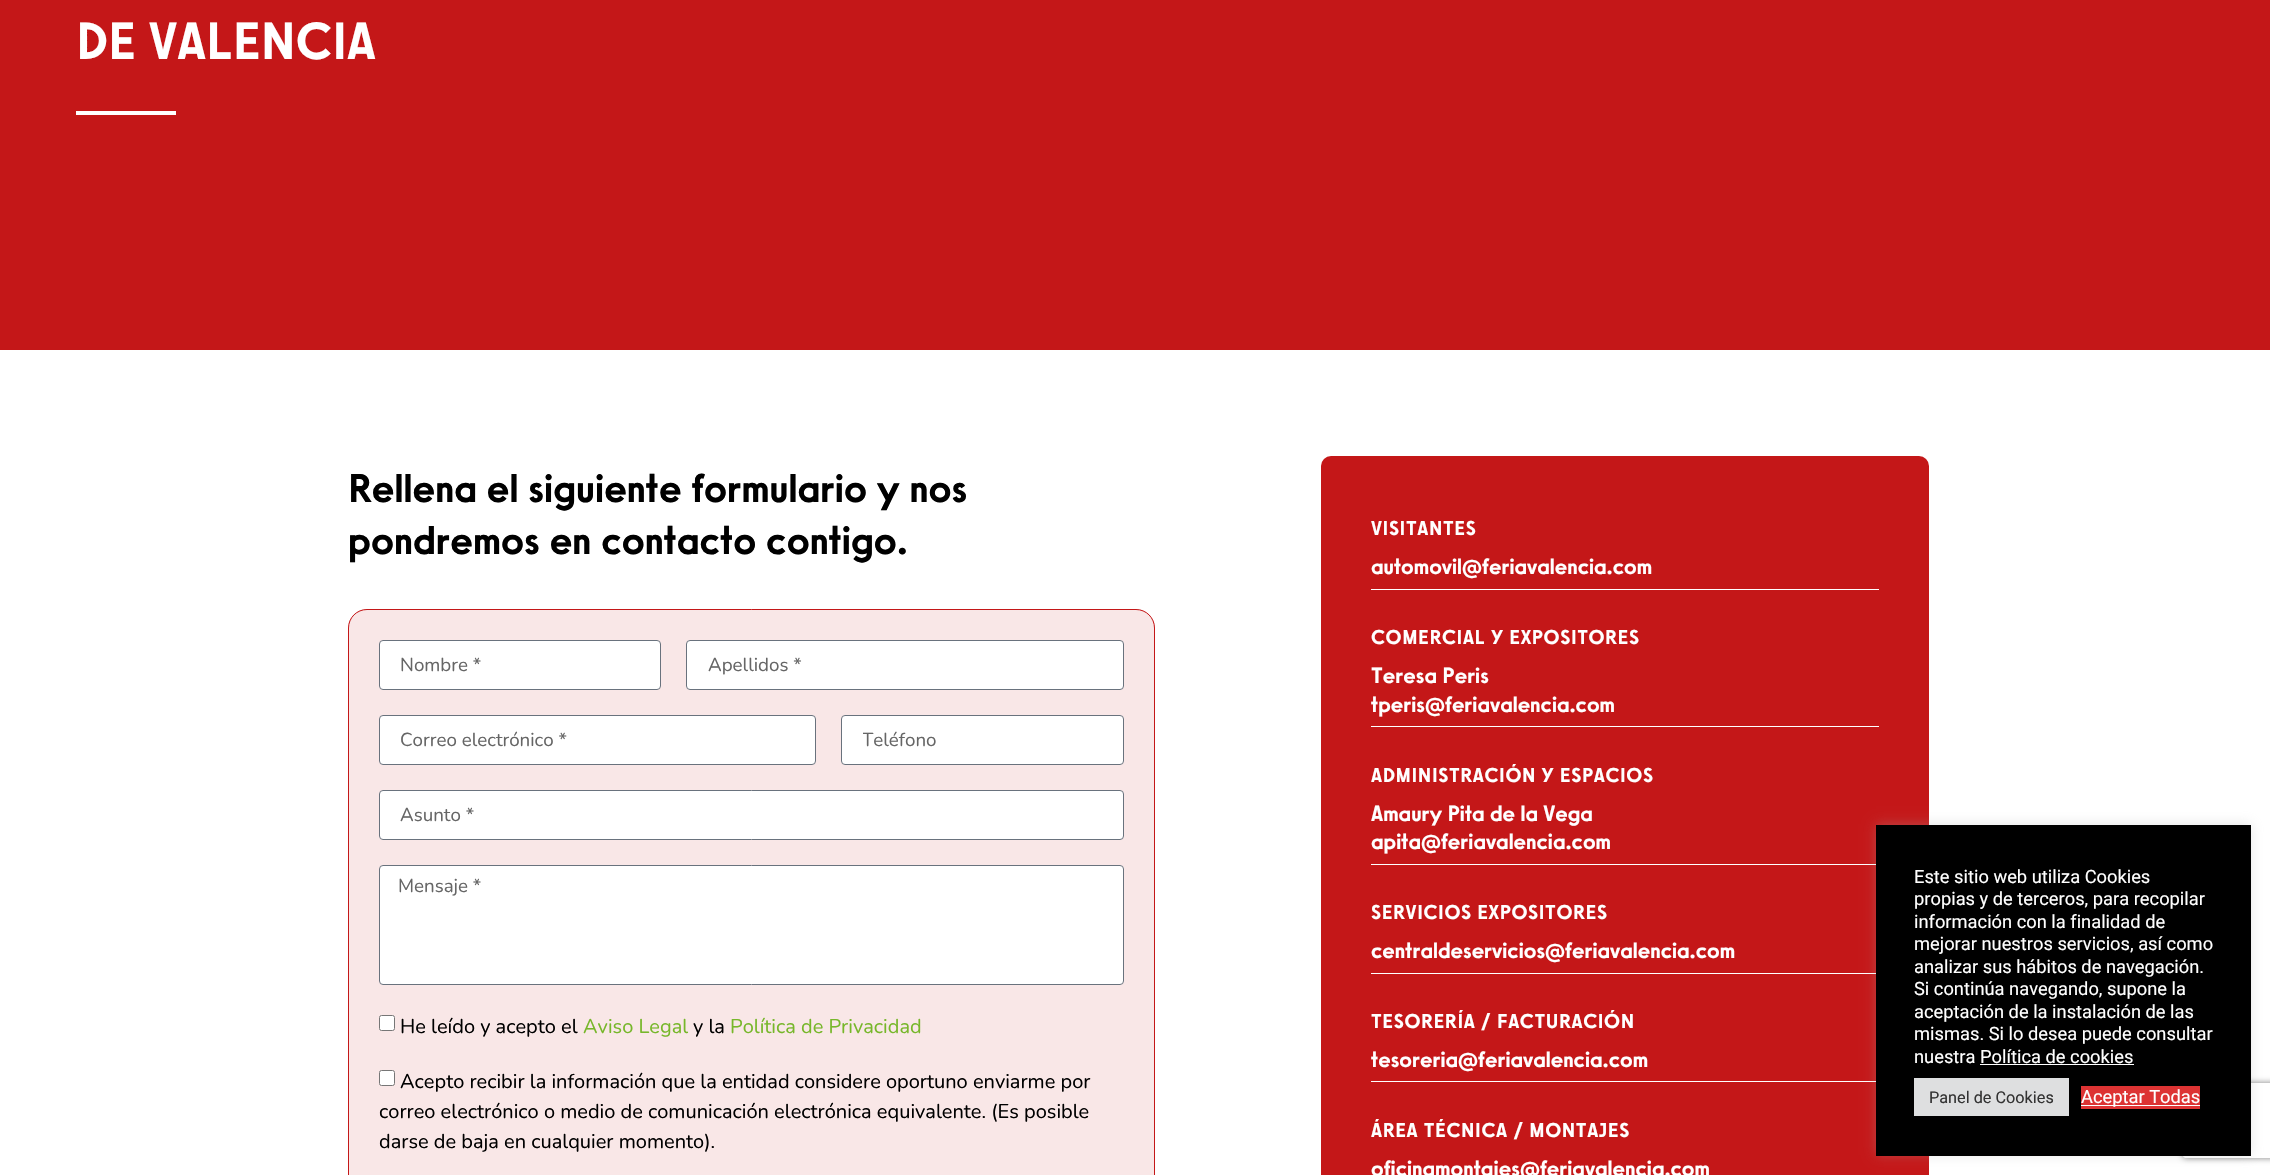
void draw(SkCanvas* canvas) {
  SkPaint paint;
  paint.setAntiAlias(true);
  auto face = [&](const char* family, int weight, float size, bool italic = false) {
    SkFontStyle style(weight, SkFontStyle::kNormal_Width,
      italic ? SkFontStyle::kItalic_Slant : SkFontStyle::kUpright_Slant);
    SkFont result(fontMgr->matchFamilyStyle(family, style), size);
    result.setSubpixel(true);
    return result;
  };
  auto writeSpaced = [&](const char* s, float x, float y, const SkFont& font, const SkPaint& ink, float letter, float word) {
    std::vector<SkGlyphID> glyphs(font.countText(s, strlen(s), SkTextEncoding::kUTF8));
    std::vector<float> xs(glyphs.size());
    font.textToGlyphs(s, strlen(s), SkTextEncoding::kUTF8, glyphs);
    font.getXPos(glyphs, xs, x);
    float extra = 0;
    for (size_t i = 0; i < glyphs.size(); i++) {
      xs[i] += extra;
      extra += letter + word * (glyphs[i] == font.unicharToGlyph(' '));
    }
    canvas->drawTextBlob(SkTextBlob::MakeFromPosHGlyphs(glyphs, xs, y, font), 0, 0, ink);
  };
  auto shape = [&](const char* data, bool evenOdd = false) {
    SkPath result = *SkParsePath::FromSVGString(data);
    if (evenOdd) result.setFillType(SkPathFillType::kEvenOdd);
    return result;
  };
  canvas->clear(0xffffffff);
  paint.setColor(0xffc41718);
  canvas->drawRect(SkRect::MakeXYWH(0, 0, 2270, 350), paint);
  paint.setColor(0xffffffff);
  canvas->drawRect(SkRect::MakeXYWH(76, 111, 100, 4), paint);
  paint.setStroke(true);
  paint.setStrokeWidth(1);
  paint.setColor(0xffc41718);
  canvas->drawRoundRect(SkRect::MakeXYWH(348.5f, 609.5f, 806, 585), 18.5f, 18.5f, paint);
  paint.setStroke(false);
  paint.setColor(0x1ac41718);
  canvas->drawRoundRect(SkRect::MakeXYWH(348, 609, 807, 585), 19, 19, paint);
  paint.setStroke(true);
  canvas->drawRoundRect(SkRect::MakeXYWH(348.5f, 609.5f, 806, 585), 18.5f, 18.5f, paint);
  paint.setStroke(false);
  paint.setColor(0xffffffff);
  canvas->drawRoundRect(SkRect::MakeXYWH(379.5f, 640.5f, 281, 49), 3.5f, 3.5f, paint);
  paint.setStroke(true);
  paint.setColor(0xff69727d);
  canvas->drawRoundRect(SkRect::MakeXYWH(379.5f, 640.5f, 281, 49), 3.5f, 3.5f, paint);
  paint.setStroke(false);
  paint.setColor(0xffffffff);
  canvas->drawRoundRect(SkRect::MakeXYWH(686.5f, 640.5f, 437, 49), 3.5f, 3.5f, paint);
  paint.setStroke(true);
  paint.setColor(0xff69727d);
  canvas->drawRoundRect(SkRect::MakeXYWH(686.5f, 640.5f, 437, 49), 3.5f, 3.5f, paint);
  paint.setStroke(false);
  paint.setColor(0xffffffff);
  canvas->drawRoundRect(SkRect::MakeXYWH(379.5f, 715.5f, 436, 49), 3.5f, 3.5f, paint);
  paint.setStroke(true);
  paint.setColor(0xff69727d);
  canvas->drawRoundRect(SkRect::MakeXYWH(379.5f, 715.5f, 436, 49), 3.5f, 3.5f, paint);
  paint.setStroke(false);
  paint.setColor(0xffffffff);
  canvas->drawRoundRect(SkRect::MakeXYWH(841.5f, 715.5f, 282, 49), 3.5f, 3.5f, paint);
  paint.setStroke(true);
  paint.setColor(0xff69727d);
  canvas->drawRoundRect(SkRect::MakeXYWH(841.5f, 715.5f, 282, 49), 3.5f, 3.5f, paint);
  paint.setStroke(false);
  paint.setColor(0xffffffff);
  canvas->drawRoundRect(SkRect::MakeXYWH(379.5f, 790.5f, 744, 49), 3.5f, 3.5f, paint);
  paint.setStroke(true);
  paint.setColor(0xff69727d);
  canvas->drawRoundRect(SkRect::MakeXYWH(379.5f, 790.5f, 744, 49), 3.5f, 3.5f, paint);
  paint.setStroke(false);
  paint.setColor(0xffffffff);
  canvas->drawRoundRect(SkRect::MakeXYWH(379.5f, 865.5f, 744, 119), 3.5f, 3.5f, paint);
  paint.setStroke(true);
  paint.setColor(0xff69727d);
  canvas->drawRoundRect(SkRect::MakeXYWH(379.5f, 865.5f, 744, 119), 3.5f, 3.5f, paint);
  paint.setStroke(false);
  paint.setColor(0xffffffff);
  canvas->drawRoundRect(SkRect::MakeXYWH(379.5f, 1015.5f, 15, 15), 2, 2, paint);
  paint.setStroke(true);
  paint.setColor(0xff767676);
  canvas->drawRoundRect(SkRect::MakeXYWH(379.5f, 1015.5f, 15, 15), 2, 2, paint);
  paint.setStroke(false);
  paint.setColor(0xffffffff);
  canvas->drawRoundRect(SkRect::MakeXYWH(379.5f, 1070.5f, 15, 15), 2, 2, paint);
  paint.setStroke(true);
  paint.setColor(0xff767676);
  canvas->drawRoundRect(SkRect::MakeXYWH(379.5f, 1070.5f, 15, 15), 2, 2, paint);
  paint.setStroke(false);
  paint.setColor(0xffc41718);
  canvas->drawRoundRect(SkRect::MakeXYWH(1321, 456, 608, 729), 10, 10, paint);
  {
    const struct { float x, y, w, h; SkColor color; } items[] = {
      {1371, 589, 508, 1, 0xffffffff},
      {1371, 726, 508, 1, 0xffffffff},
      {1371, 864, 508, 1, 0xffffffff},
      {1371, 973, 508, 1, 0xffffffff},
      {1371, 1081, 508, 1, 0xffffffff},
    };
    for (auto [x, y, w, h, color] : items) {
      paint.setColor(color);
      canvas->drawRect(SkRect::MakeXYWH(x, y, w, h), paint);
    }
  }
  paint.setColor(0x4dacabab);
  paint.setMaskFilter(SkMaskFilter::MakeBlur(kNormal_SkBlurStyle, 6));
  canvas->drawRect(SkRect::MakeXYWH(1876, 824, 375, 331), paint);
  paint.setMaskFilter(nullptr);
  canvas->save();
  canvas->clipPath(shape("M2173 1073H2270V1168H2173ZM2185.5 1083H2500.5C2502 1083 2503 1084 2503 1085.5V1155.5C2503 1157 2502 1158 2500.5 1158H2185.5C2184 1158 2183 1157 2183 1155.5V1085.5C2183 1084 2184 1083 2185.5 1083Z", true), true);
  paint.setColor(0xff808080);
  paint.setMaskFilter(SkMaskFilter::MakeBlur(kNormal_SkBlurStyle, 3));
  canvas->drawRoundRect(SkRect::MakeXYWH(2183, 1083, 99, 75), 2.5f, 2.5f, paint);
  paint.setMaskFilter(nullptr);
  canvas->restore();
  {
    const struct { float x, y, w, h; SkColor color; } items[] = {
      {1876, 825, 375, 331, 0xff000000},
      {1980, 1064, 154, 1, 0xffffffff},
      {1914, 1078, 155, 38, 0xffdedfe0},
      {2081, 1086, 119, 23, 0xffdd3333},
      {2081, 1105, 119, 1, 0xffffffff},
    };
    for (auto [x, y, w, h, color] : items) {
      paint.setColor(color);
      canvas->drawRect(SkRect::MakeXYWH(x, y, w, h), paint);
    }
  }
  auto f0 = face("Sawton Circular", 500, 52);
  canvas->drawString("DE VALENCIA", 76, 59, f0, paint);
  auto f1 = face("Sawton Circular", 500, 40);
  paint.setColor(0xff000000);
  canvas->drawString("Rellena el siguiente formulario y nos", 348, 502, f1, paint);
  canvas->drawString("pondremos en contacto contigo.", 348, 554, f1, paint);
  auto f2 = face("Nunito", 400, 18.75f);
  paint.setColor(0xff666666);
  {
    const struct { const char* s; float x, y; } items[] = {
      {"Nombre *", 400, 671},
      {"Apellidos *", 708, 671},
      {"Correo electrónico *", 400, 746},
    };
    for (auto [s, x, y] : items) {
      canvas->drawString(s, x, y, f2, paint);
    }
  }
  canvas->save();
  canvas->clipRect(SkRect::MakeXYWH(863, 728, 240, 25));
  canvas->drawString("Teléfono", 862, 746, f2, paint);
  canvas->restore();
  canvas->drawString("Asunto *", 400, 821, f2, paint);
  canvas->drawString("Mensaje *", 398, 892, f2, paint);
  auto f3 = face("Nunito", 400, 20);
  paint.setColor(0xff000000);
  canvas->drawString("He leído y acepto el", 400, 1033, f3, paint);
  paint.setColor(0xff77b72a);
  canvas->drawString("Aviso Legal", 583, 1033, f3, paint);
  paint.setColor(0xff000000);
  canvas->drawString("y la", 693, 1033, f3, paint);
  paint.setColor(0xff77b72a);
  canvas->drawString("Política de Privacidad", 730, 1033, f3, paint);
  paint.setColor(0xff000000);
  {
    const struct { const char* s; float x, y; } items[] = {
      {"Acepto recibir la información que la entidad considere oportuno enviarme por", 400, 1088},
      {"correo electrónico o medio de comunicación electrónica equivalente. (Es posible", 379, 1118},
      {"darse de baja en cualquier momento).", 379, 1148},
    };
    for (auto [s, x, y] : items) {
      canvas->drawString(s, x, y, f3, paint);
    }
  }
  auto f4 = face("Sawton Circular", 500, 20);
  paint.setColor(0xffffffff);
  writeSpaced("VISITANTES", 1371, 535, f4, paint, 0.6f, 0);
  auto f5 = face("Sawton Circular", 500, 22);
  canvas->drawString("automovil@feriavalencia.com", 1371, 574, f5, paint);
  writeSpaced("COMERCIAL Y EXPOSITORES", 1371, 644, f4, paint, 0.6f, 0);
  canvas->drawString("Teresa Peris", 1371, 683, f5, paint);
  canvas->drawString("tperis@feriavalencia.com", 1371, 712, f5, paint);
  writeSpaced("ADMINISTRACIÓN Y ESPACIOS", 1371, 782, f4, paint, 0.6f, 0);
  canvas->drawString("Amaury Pita de la Vega", 1371, 821, f5, paint);
  canvas->drawString("apita@feriavalencia.com", 1371, 849, f5, paint);
  writeSpaced("SERVICIOS EXPOSITORES", 1371, 919, f4, paint, 0.6f, 0);
  canvas->drawString("centraldeservicios@feriavalencia.com", 1371, 958, f5, paint);
  writeSpaced("TESORERÍA / FACTURACIÓN", 1371, 1028, f4, paint, 0.6f, 0);
  canvas->drawString("tesoreria@feriavalencia.com", 1371, 1067, f5, paint);
  writeSpaced("ÁREA TÉCNICA / MONTAJES", 1371, 1137, f4, paint, 0.6f, 0);
  canvas->drawString("oficinamontajes@feriavalencia.com", 1371, 1176, f5, paint);
  auto f6 = face("Roboto", 400, 18.3f);
  {
    const struct { const char* s; float x, y; } items[] = {
      {"Este sitio web utiliza Cookies", 1914, 883},
      {"propias y de terceros, para recopilar", 1914, 905},
      {"información con la finalidad de", 1914, 928},
      {"mejorar nuestros servicios, así como", 1914, 950},
      {"analizar sus hábitos de navegación.", 1914, 973},
      {"Si continúa navegando, supone la", 1914, 995},
      {"aceptación de la instalación de las", 1914, 1018},
      {"mismas. Si lo desea puede consultar", 1914, 1040},
      {"nuestra Política de cookies", 1914, 1063},
    };
    for (auto [s, x, y] : items) {
      canvas->drawString(s, x, y, f6, paint);
    }
  }
  auto f7 = face("Roboto", 400, 16.25f);
  paint.setColor(0xff333333);
  canvas->drawString("Panel de Cookies", 1929, 1103, f7, paint);
  paint.setColor(0xffffffff);
  canvas->drawString("Aceptar Todas", 2081, 1103, f6, paint);
}
